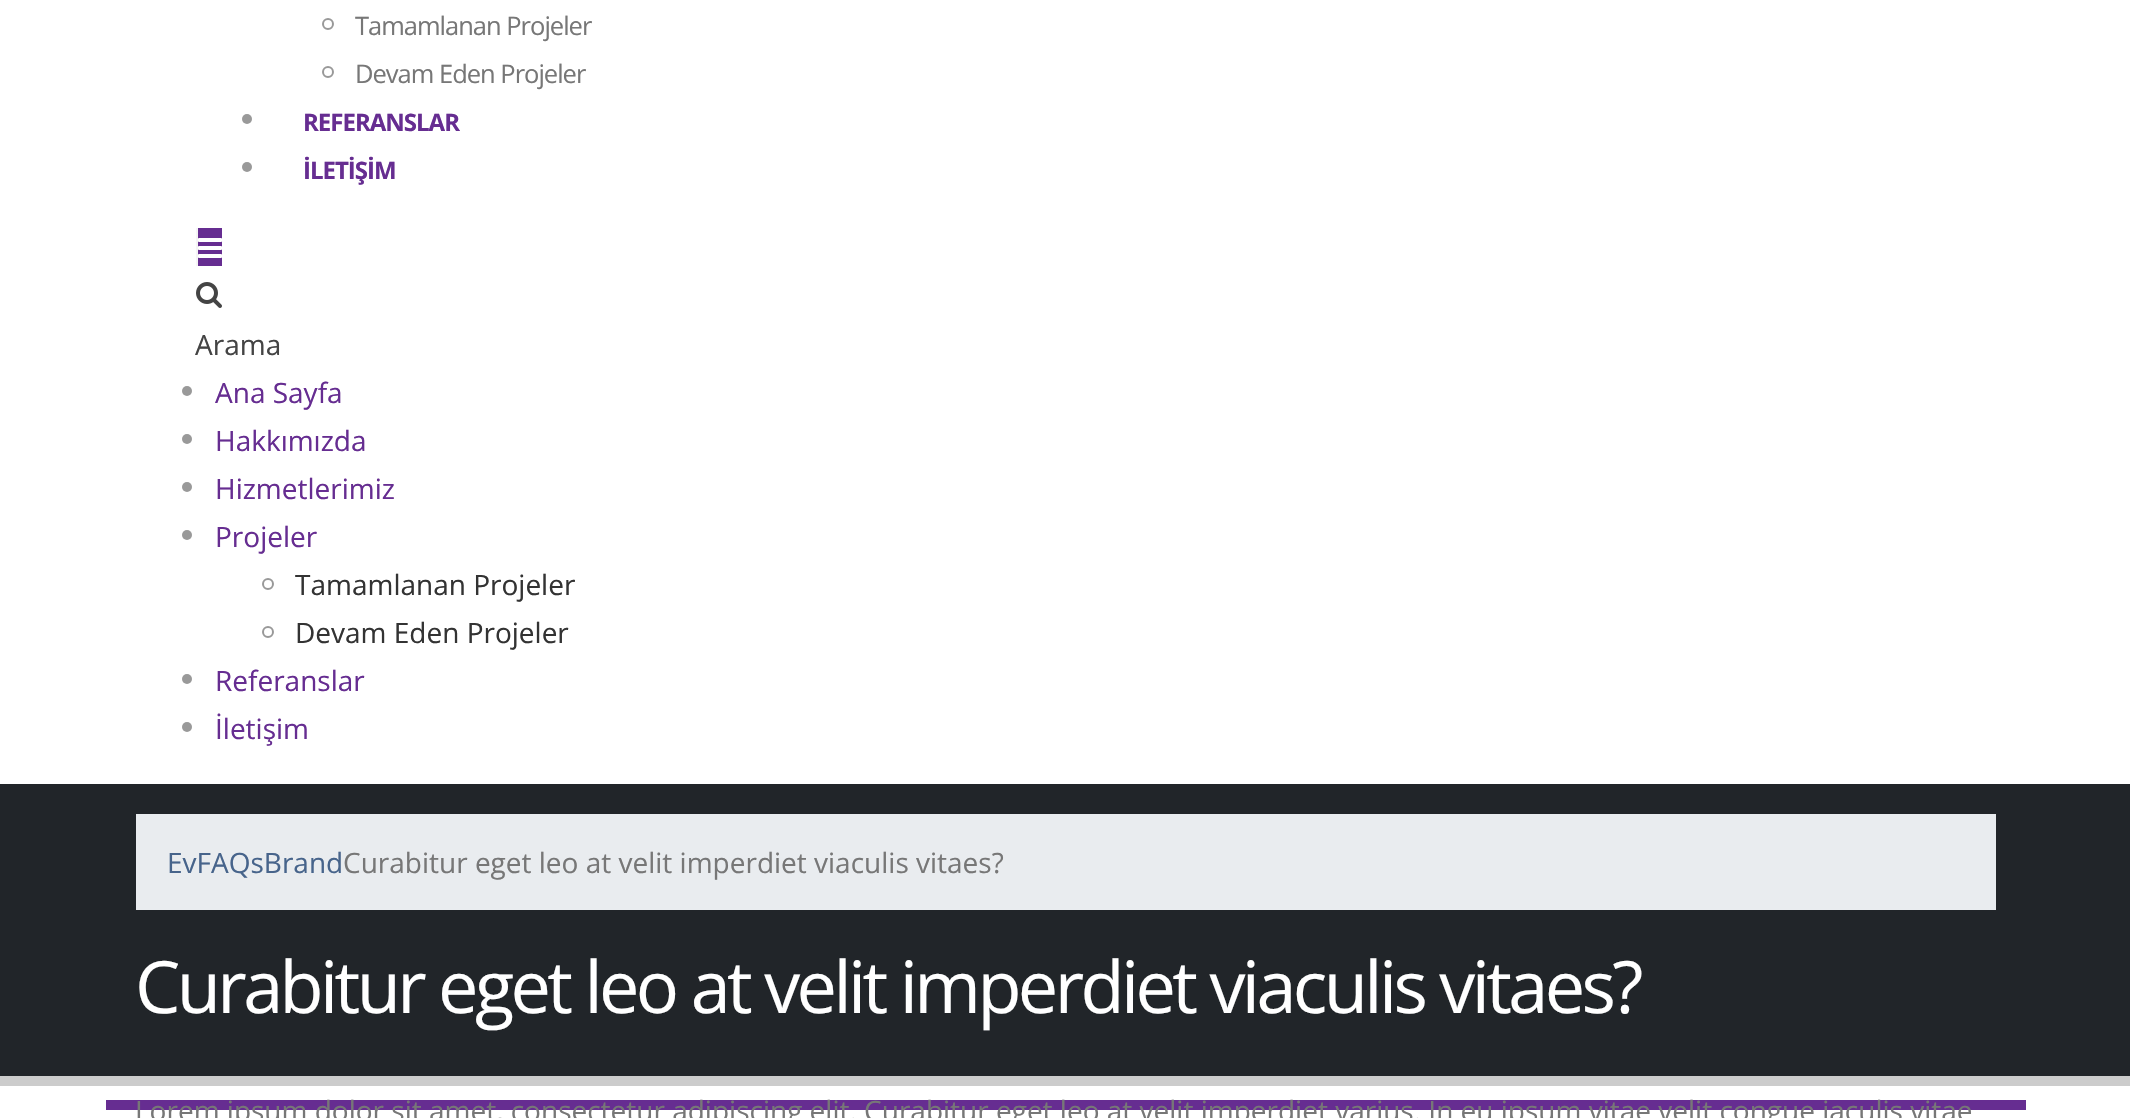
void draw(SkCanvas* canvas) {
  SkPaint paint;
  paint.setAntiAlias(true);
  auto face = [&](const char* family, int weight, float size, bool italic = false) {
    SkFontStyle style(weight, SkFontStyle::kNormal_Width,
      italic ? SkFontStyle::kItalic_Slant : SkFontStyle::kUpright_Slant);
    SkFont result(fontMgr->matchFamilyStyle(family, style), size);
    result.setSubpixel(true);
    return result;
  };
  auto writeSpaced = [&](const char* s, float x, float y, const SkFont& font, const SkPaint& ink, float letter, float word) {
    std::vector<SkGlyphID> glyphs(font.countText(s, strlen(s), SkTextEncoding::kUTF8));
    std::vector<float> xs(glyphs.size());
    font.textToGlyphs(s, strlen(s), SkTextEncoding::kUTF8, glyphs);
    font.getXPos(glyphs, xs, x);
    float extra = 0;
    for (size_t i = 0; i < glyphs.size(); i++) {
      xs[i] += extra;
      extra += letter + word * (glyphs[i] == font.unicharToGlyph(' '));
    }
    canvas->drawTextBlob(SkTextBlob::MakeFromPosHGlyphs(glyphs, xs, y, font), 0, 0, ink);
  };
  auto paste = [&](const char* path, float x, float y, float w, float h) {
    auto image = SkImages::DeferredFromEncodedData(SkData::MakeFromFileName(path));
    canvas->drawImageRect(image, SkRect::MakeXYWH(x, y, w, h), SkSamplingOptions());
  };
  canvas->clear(0xffffffff);
  paint.setStroke(true);
  paint.setStrokeWidth(2);
  paint.setColor(0xff999999);
  canvas->drawCircle(328, 24, 5, paint);
  canvas->drawCircle(328, 72, 5, paint);
  paint.setStroke(false);
  canvas->drawCircle(247, 119, 5, paint);
  canvas->drawCircle(247, 167, 5, paint);
  paint.setColor(0xfff5f5f5);
  canvas->drawRect(SkRect::MakeXYWH(196, 228, 2, 38), paint);
  paint.setColor(0xff662d91);
  canvas->drawRect(SkRect::MakeXYWH(198, 228, 24, 38), paint);
  paste("img/1.png", 198, 238, 24, 20);
  paste("img/2.png", 196, 282, 26, 26);
  paint.setColor(0xff999999);
  canvas->drawCircle(187, 391, 5, paint);
  canvas->drawCircle(187, 439, 5, paint);
  canvas->drawCircle(187, 487, 5, paint);
  canvas->drawCircle(187, 535, 5, paint);
  paint.setStroke(true);
  canvas->drawCircle(268, 584, 5, paint);
  canvas->drawCircle(268, 632, 5, paint);
  paint.setStroke(false);
  canvas->drawCircle(187, 679, 5, paint);
  canvas->drawCircle(187, 727, 5, paint);
  {
    const struct { float x, y, w, h; SkColor color; } items[] = {
      {0, 784, 2130, 292, 0xff212529},
      {0, 1076, 2130, 10, 0xffcccccc},
      {136, 814, 1860, 96, 0xffe9ecef},
      {106, 1100, 1920, 10, 0xff662d91},
    };
    for (auto [x, y, w, h, color] : items) {
      paint.setColor(color);
      canvas->drawRect(SkRect::MakeXYWH(x, y, w, h), paint);
    }
  }
  auto f0 = face("Open Sans", 400, 25.5f);
  paint.setColor(0xff777777);
  writeSpaced("Tamamlanan Projeler", 355, 35, f0, paint, -1, 0);
  writeSpaced("Devam Eden Projeler", 355, 83, f0, paint, -1, 0);
  auto f1 = face("Open Sans", 700, 24);
  paint.setColor(0xff662d91);
  writeSpaced("REFERANSLAR", 303, 131, f1, paint, -1, 0);
  writeSpaced("İLETİŞİM", 303, 179, f1, paint, -1, 0);
  auto f2 = face("Open Sans", 400, 28);
  paint.setColor(0xff444444);
  canvas->drawString("Arama", 195, 355, f2, paint);
  paint.setColor(0xff662d91);
  {
    const struct { const char* s; float x, y; } items[] = {
      {"Ana Sayfa", 215, 403},
      {"Hakkımızda", 215, 451},
      {"Hizmetlerimiz", 215, 499},
      {"Projeler", 215, 547},
    };
    for (auto [s, x, y] : items) {
      canvas->drawString(s, x, y, f2, paint);
    }
  }
  paint.setColor(0xff333333);
  canvas->drawString("Tamamlanan Projeler", 295, 595, f2, paint);
  canvas->drawString("Devam Eden Projeler", 295, 643, f2, paint);
  paint.setColor(0xff662d91);
  canvas->drawString("Referanslar", 215, 691, f2, paint);
  canvas->drawString("İletişim", 215, 739, f2, paint);
  paint.setColor(0xff47648b);
  canvas->drawString("EvFAQsBrand", 167, 873, f2, paint);
  paint.setColor(0xff777777);
  canvas->drawString("Curabitur eget leo at velit imperdiet viaculis vitaes?", 343, 873, f2, paint);
  auto f3 = face("Open Sans", 400, 72);
  paint.setColor(0xffffffff);
  writeSpaced("Curabitur eget leo at velit imperdiet viaculis vitaes?", 135, 1013, f3, paint, -3.6f, 0);
  paint.setColor(0xff777777);
  canvas->drawString("Lorem ipsum dolor sit amet, consectetur adipiscing elit. Curabitur eget leo at velit imperdiet varius. In eu ipsum vitae velit congue iaculis vitae", 135, 1121, f2, paint);
}
